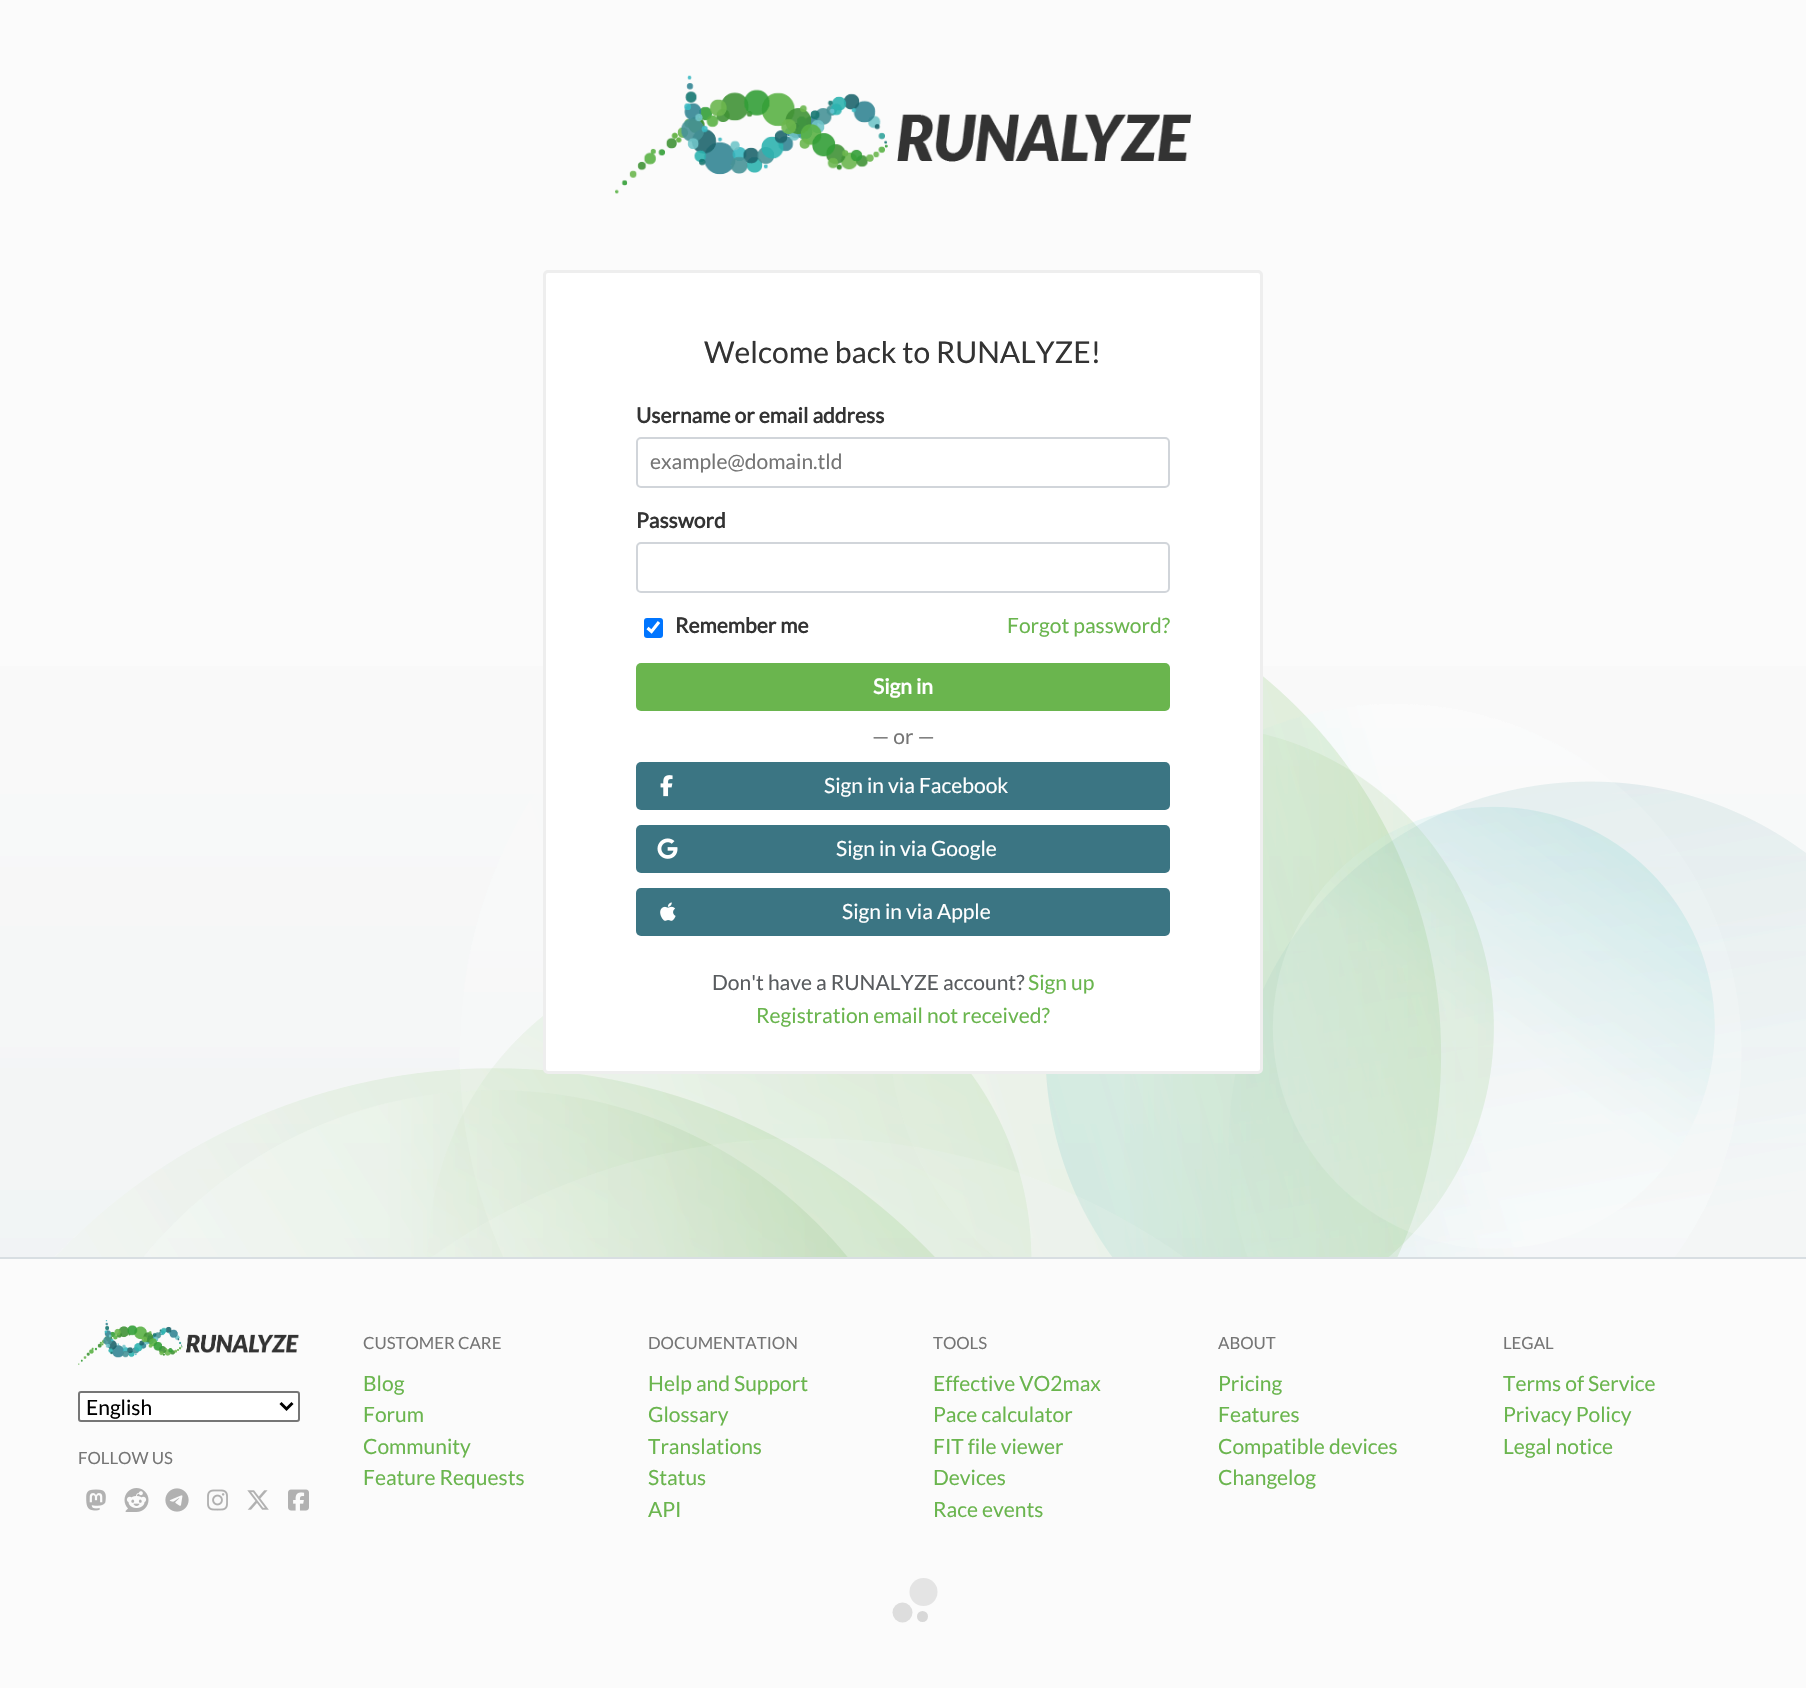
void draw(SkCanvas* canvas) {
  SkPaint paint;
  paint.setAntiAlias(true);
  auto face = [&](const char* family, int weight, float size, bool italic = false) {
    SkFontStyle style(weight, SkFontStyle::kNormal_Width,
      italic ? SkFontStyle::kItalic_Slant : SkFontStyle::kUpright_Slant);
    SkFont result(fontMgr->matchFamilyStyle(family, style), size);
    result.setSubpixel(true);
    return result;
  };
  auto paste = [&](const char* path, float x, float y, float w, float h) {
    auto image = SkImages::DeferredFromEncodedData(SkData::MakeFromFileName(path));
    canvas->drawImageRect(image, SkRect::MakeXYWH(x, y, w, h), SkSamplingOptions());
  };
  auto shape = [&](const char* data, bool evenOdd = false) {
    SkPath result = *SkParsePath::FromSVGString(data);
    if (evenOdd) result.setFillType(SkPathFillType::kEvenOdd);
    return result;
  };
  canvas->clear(0xfffbfbfb);
  paste("img/1.png", 615, 75, 576, 119);
  paste("img/12.png", 0, 666, 1806, 591);
  paste("img/13.png", 0, 666, 1806, 591);
  paint.setColor(0xffffffff);
  canvas->drawRoundRect(SkRect::MakeXYWH(544.5f, 271.5f, 717, 801), 3.5f, 3.5f, paint);
  paint.setStroke(true);
  paint.setStrokeWidth(3);
  paint.setColor(0xffeeeeee);
  canvas->drawRoundRect(SkRect::MakeXYWH(544.5f, 271.5f, 717, 801), 3.5f, 3.5f, paint);
  paint.setStrokeWidth(2);
  paint.setColor(0xffd1d5da);
  canvas->drawRoundRect(SkRect::MakeXYWH(637, 438, 532, 49), 4, 4, paint);
  canvas->drawRoundRect(SkRect::MakeXYWH(637, 543, 532, 49), 4, 4, paint);
  paint.setStroke(false);
  paint.setColor(0xff0075ff);
  canvas->drawRoundRect(SkRect::MakeXYWH(644, 618, 19, 20), 3, 3, paint);
  paint.setStroke(true);
  paint.setStrokeWidth(3.1f);
  paint.setColor(0xffffffff);
  canvas->drawPath(shape("M647.5 628L651.5 631.5L659 622"), paint);
  paint.setStroke(false);
  paint.setColor(0xff6ab54e);
  canvas->drawRoundRect(SkRect::MakeXYWH(636, 663, 534, 48), 5, 5, paint);
  paint.setColor(0xff3b7583);
  canvas->drawRoundRect(SkRect::MakeXYWH(636, 762, 534, 48), 5, 5, paint);
  paste("img/2.png", 660, 775, 13, 22);
  canvas->drawRoundRect(SkRect::MakeXYWH(636, 825, 534, 48), 5, 5, paint);
  paste("img/3.png", 657, 838, 21, 21);
  canvas->drawRoundRect(SkRect::MakeXYWH(636, 888, 534, 48), 5, 5, paint);
  paste("img/4.png", 660, 902, 16, 19);
  paint.setColor(0xffd8dee2);
  canvas->drawRect(SkRect::MakeXYWH(0, 1257, 1806, 2), paint);
  paste("img/5.png", 78, 1320, 221, 45);
  paint.setColor(0xffffffff);
  canvas->drawRoundRect(SkRect::MakeXYWH(79, 1392, 220, 29), 2, 2, paint);
  paint.setStroke(true);
  paint.setStrokeWidth(2);
  paint.setColor(0xff767676);
  canvas->drawRoundRect(SkRect::MakeXYWH(79, 1392, 220, 29), 2, 2, paint);
  paint.setStrokeWidth(3);
  paint.setColor(0xff000000);
  canvas->drawPath(shape("M280.5 1403L286.5 1409L292.5 1403"), paint);
  paste("img/6.png", 86, 1489, 20, 22);
  paste("img/7.png", 124, 1488, 25, 24);
  paste("img/8.png", 165, 1488, 24, 24);
  paste("img/9.png", 207, 1489, 21, 22);
  paste("img/10.png", 247, 1490, 22, 20);
  paste("img/11.png", 288, 1489, 21, 22);
  paint.setStroke(false);
  paint.setColor(0xffe4e4e4);
  canvas->drawCircle(923.5f, 1592, 14, paint);
  paint.setColor(0xffdddddd);
  canvas->drawCircle(902.5f, 1612.5f, 10, paint);
  paint.setColor(0xffd8d8d8);
  canvas->drawCircle(922.5f, 1616.5f, 5.5f, paint);
  auto f0 = face("Lato", 400, 30);
  paint.setColor(0xff333333);
  canvas->drawString("Welcome back to RUNALYZE!", 704, 363, f0, paint);
  auto f1 = face("Lato", 700, 21);
  canvas->drawString("Username or email address", 636, 423, f1, paint);
  auto f2 = face("Lato", 400, 21);
  paint.setColor(0xff757575);
  canvas->drawString("example@domain.tld", 650, 469, f2, paint);
  paint.setColor(0xff333333);
  canvas->drawString("Password", 636, 528, f1, paint);
  canvas->drawString("Remember me", 675, 633, f1, paint);
  paint.setColor(0xff6ab54e);
  canvas->drawString("Forgot password?", 1007, 633, f2, paint);
  paint.setColor(0xffffffff);
  canvas->drawString("Sign in", 873, 694, f1, paint);
  paint.setColor(0xff757575);
  canvas->drawString("— or —", 872, 744, f2, paint);
  paint.setColor(0xffffffff);
  {
    const struct { const char* s; float x, y; } items[] = {
      {"Sign in via Facebook", 824, 793},
      {"Sign in via Google", 836, 856},
      {"Sign in via Apple", 842, 919},
    };
    for (auto [s, x, y] : items) {
      canvas->drawString(s, x, y, f2, paint);
    }
  }
  paint.setColor(0xff595c5f);
  canvas->drawString("Don't have a RUNALYZE account?", 712, 990, f2, paint);
  paint.setColor(0xff6ab54e);
  canvas->drawString("Sign up", 1028, 990, f2, paint);
  canvas->drawString("Registration email not received?", 756, 1023, f2, paint);
  paint.setColor(0xff000000);
  canvas->drawString("English", 86, 1415, f2, paint);
  auto f3 = face("Lato", 400, 16.75f);
  paint.setColor(0xff757575);
  canvas->drawString("FOLLOW US", 78, 1464, f3, paint);
  canvas->drawString("CUSTOMER CARE", 363, 1349, f3, paint);
  paint.setColor(0xff6ab54e);
  {
    const struct { const char* s; float x, y; } items[] = {
      {"Blog", 363, 1391},
      {"Forum", 363, 1422},
      {"Community", 363, 1454},
      {"Feature Requests", 363, 1485},
    };
    for (auto [s, x, y] : items) {
      canvas->drawString(s, x, y, f2, paint);
    }
  }
  paint.setColor(0xff757575);
  canvas->drawString("DOCUMENTATION", 648, 1349, f3, paint);
  paint.setColor(0xff6ab54e);
  {
    const struct { const char* s; float x, y; } items[] = {
      {"Help and Support", 648, 1391},
      {"Glossary", 648, 1422},
      {"Translations", 648, 1454},
      {"Status", 648, 1485},
      {"API", 648, 1517},
    };
    for (auto [s, x, y] : items) {
      canvas->drawString(s, x, y, f2, paint);
    }
  }
  paint.setColor(0xff757575);
  canvas->drawString("TOOLS", 933, 1349, f3, paint);
  paint.setColor(0xff6ab54e);
  {
    const struct { const char* s; float x, y; } items[] = {
      {"Effective VO2max", 933, 1391},
      {"Pace calculator", 933, 1422},
      {"FIT file viewer", 933, 1454},
      {"Devices", 933, 1485},
      {"Race events", 933, 1517},
    };
    for (auto [s, x, y] : items) {
      canvas->drawString(s, x, y, f2, paint);
    }
  }
  paint.setColor(0xff757575);
  canvas->drawString("ABOUT", 1218, 1349, f3, paint);
  paint.setColor(0xff6ab54e);
  {
    const struct { const char* s; float x, y; } items[] = {
      {"Pricing", 1218, 1391},
      {"Features", 1218, 1422},
      {"Compatible devices", 1218, 1454},
      {"Changelog", 1218, 1485},
    };
    for (auto [s, x, y] : items) {
      canvas->drawString(s, x, y, f2, paint);
    }
  }
  paint.setColor(0xff757575);
  canvas->drawString("LEGAL", 1503, 1349, f3, paint);
  paint.setColor(0xff6ab54e);
  {
    const struct { const char* s; float x, y; } items[] = {
      {"Terms of Service", 1503, 1391},
      {"Privacy Policy", 1503, 1422},
      {"Legal notice", 1503, 1454},
    };
    for (auto [s, x, y] : items) {
      canvas->drawString(s, x, y, f2, paint);
    }
  }
}
